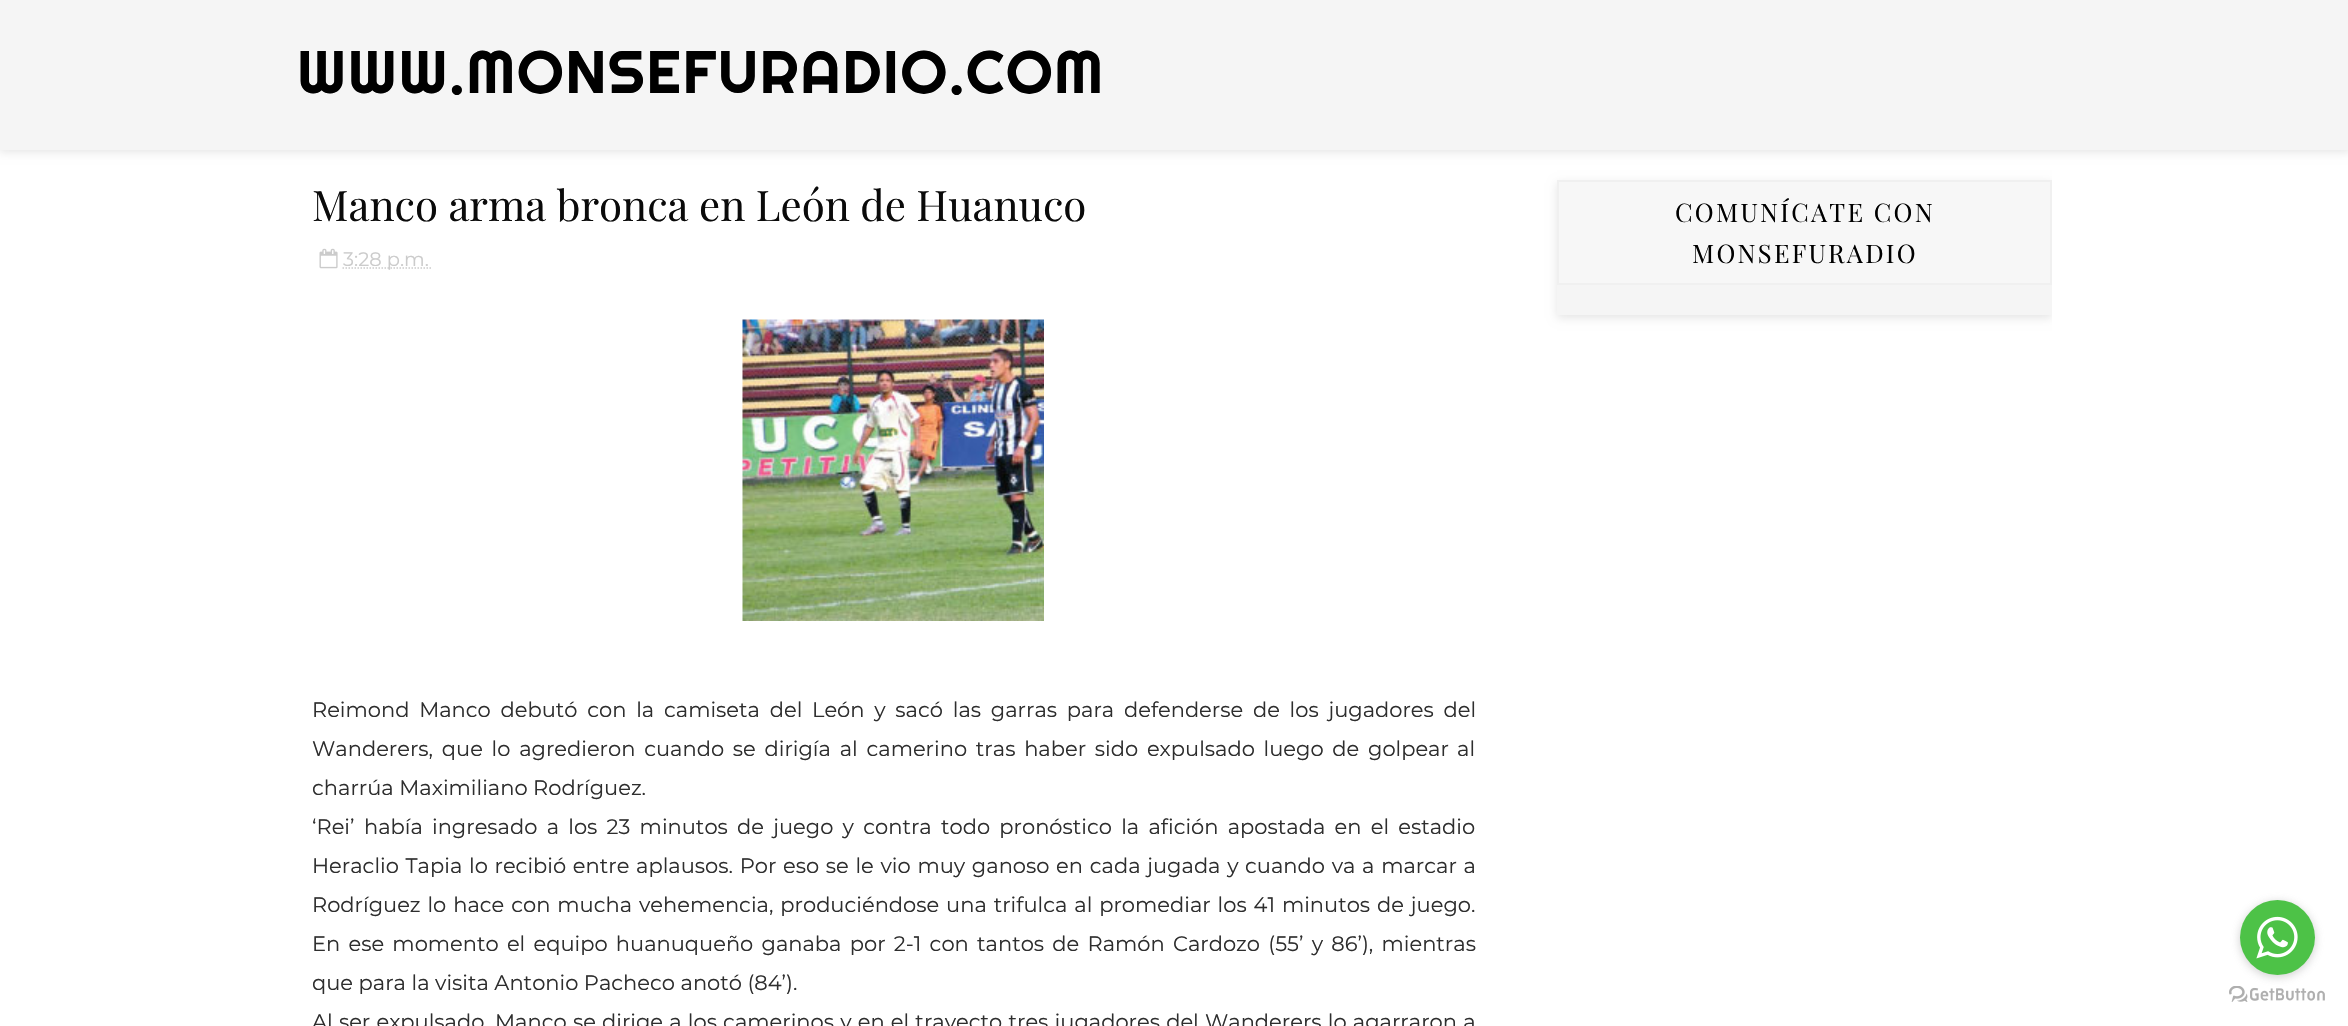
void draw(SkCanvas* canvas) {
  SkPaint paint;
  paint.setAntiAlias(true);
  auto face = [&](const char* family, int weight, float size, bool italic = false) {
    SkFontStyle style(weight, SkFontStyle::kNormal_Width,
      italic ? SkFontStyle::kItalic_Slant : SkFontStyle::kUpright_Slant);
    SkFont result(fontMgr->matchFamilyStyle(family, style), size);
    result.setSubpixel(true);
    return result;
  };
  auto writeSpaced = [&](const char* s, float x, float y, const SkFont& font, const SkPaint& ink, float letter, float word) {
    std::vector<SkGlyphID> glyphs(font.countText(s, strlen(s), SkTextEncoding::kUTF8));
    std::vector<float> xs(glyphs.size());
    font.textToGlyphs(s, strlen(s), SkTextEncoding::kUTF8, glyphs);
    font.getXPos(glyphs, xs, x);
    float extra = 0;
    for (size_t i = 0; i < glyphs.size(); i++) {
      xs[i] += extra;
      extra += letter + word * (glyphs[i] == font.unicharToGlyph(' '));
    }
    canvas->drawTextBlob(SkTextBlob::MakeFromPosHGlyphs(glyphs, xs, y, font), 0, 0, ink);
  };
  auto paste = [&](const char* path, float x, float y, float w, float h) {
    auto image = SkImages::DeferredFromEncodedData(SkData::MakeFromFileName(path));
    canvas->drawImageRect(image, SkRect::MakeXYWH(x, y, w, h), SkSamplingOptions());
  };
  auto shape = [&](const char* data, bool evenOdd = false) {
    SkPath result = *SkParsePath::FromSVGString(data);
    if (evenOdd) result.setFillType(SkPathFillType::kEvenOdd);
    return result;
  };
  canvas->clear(0xffffffff);
  paint.setColor(0x1a000000);
  paint.setMaskFilter(SkMaskFilter::MakeBlur(kNormal_SkBlurStyle, 4.5f));
  canvas->drawRect(SkRect::MakeXYWH(-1, -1, 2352, 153), paint);
  paint.setMaskFilter(nullptr);
  paint.setColor(0xfff5f5f5);
  canvas->drawRect(SkRect::MakeXYWH(0, 0, 2348, 150), paint);
  paste("img/1.png", 319, 248, 19, 21);
  paint.setStroke(true);
  paint.setStrokeWidth(1.5f);
  paint.setColor(0xffcbcbcb);
  paint.setPathEffect(SkDashPathEffect::Make({{1.5f, 1.5f}}, 0));
  canvas->drawPath(shape("M342.5 268H431"), paint);
  paint.setPathEffect(nullptr);
  paste("img/2.png", 742, 319, 302, 302);
  canvas->save();
  canvas->clipRect(SkRect::MakeXYWH(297, 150, 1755, 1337));
  paint.setStroke(false);
  paint.setColor(0x1a000000);
  paint.setMaskFilter(SkMaskFilter::MakeBlur(kNormal_SkBlurStyle, 4.5f));
  canvas->drawRect(SkRect::MakeXYWH(1557, 183, 495, 135), paint);
  paint.setMaskFilter(nullptr);
  canvas->restore();
  paint.setColor(0xfff5f5f5);
  canvas->drawRect(SkRect::MakeXYWH(1557, 285, 495, 30), paint);
  paint.setColor(0xfff7f7f7);
  canvas->drawRect(SkRect::MakeXYWH(1558, 181, 493, 103), paint);
  paint.setStroke(true);
  paint.setStrokeWidth(2);
  paint.setColor(0xfff0f0f0);
  canvas->drawRect(SkRect::MakeXYWH(1558, 181, 493, 103), paint);
  paste("img/4.png", 2229, 986, 96, 16);
  paint.setStroke(false);
  paint.setColor(0x66888888);
  paint.setMaskFilter(SkMaskFilter::MakeBlur(kNormal_SkBlurStyle, 5));
  canvas->drawRoundRect(SkRect::MakeXYWH(2240, 902, 75, 75), 37.5f, 37.5f, paint);
  paint.setMaskFilter(nullptr);
  paint.setColor(0xff4dc247);
  canvas->drawCircle(2277.5f, 937.5f, 37.5f, paint);
  paste("img/3.png", 2256, 916, 42, 43);
  auto f0 = face("Righteous", 400, 60);
  paint.setColor(0xff000000);
  writeSpaced("WWW.MONSEFURADIO.COM", 297, 93, f0, paint, 1.5f, 0);
  auto f1 = face("Playfair Display", 400, 42);
  paint.setColor(0xff0a0a0a);
  canvas->drawString("Manco arma bronca en León de Huanuco", 312, 221, f1, paint);
  auto f2 = face("Montserrat", 400, 19.5f);
  paint.setColor(0xffcbcbcb);
  canvas->drawString("3:28 p. m.", 343, 266, f2, paint);
  auto f3 = face("Montserrat", 400, 21);
  paint.setColor(0xff2e2e2e);
  writeSpaced("Reimond Manco debutó con la camiseta del León y sacó las garras para defenderse de los jugadores del", 312, 717, f3, paint, 0, 4.25f);
  writeSpaced("Wanderers, que lo agredieron cuando se dirigía al camerino tras haber sido expulsado luego de golpear", 312, 756, f3, paint, 0, 3.25f);
  {
    const struct { const char* s; float x, y; } items[] = {
      {"al", 1457, 756},
      {"charrúa Maximiliano Rodríguez.", 312, 795},
      {"‘Rei’", 312, 834},
      {"había", 364, 834},
    };
    for (auto [s, x, y] : items) {
      canvas->drawString(s, x, y, f3, paint);
    }
  }
  writeSpaced("ingresado a los 23 minutos de juego y contra todo pronóstico la afición apostada en el estadio", 432, 834, f3, paint, 0, 3.75f);
  writeSpaced("Heraclio Tapia lo recibió entre aplausos. Por eso se le vio muy ganoso en cada jugada y", 312, 873, f3, paint, 0, 1.2f);
  writeSpaced("cuando va a marcar a", 1245, 873, f3, paint, 0, 1.2f);
  writeSpaced("Rodríguez lo hace con mucha vehemencia, produciéndose una trifulca al promediar los 41 minutos de juego.", 312, 912, f3, paint, 0, 1.4f);
  writeSpaced("En ese momento el equipo huanuqueño ganaba por 2-1 con tantos de Ramón Cardozo (55’ y 86’), mientras", 312, 951, f3, paint, 0, 2.75f);
  canvas->drawString("que para la visita Antonio Pacheco anotó (84’).", 312, 990, f3, paint);
  writeSpaced("Al ser expulsado, Manco se dirige a los camerinos y en el trayecto tres jugadores del Wanderers lo agarraron a", 312, 1029, f3, paint, 0, 0.7f);
  auto f4 = face("Playfair Display", 400, 25.5f);
  paint.setColor(0xff000000);
  writeSpaced("COMUNÍCATE CON", 1675, 222, f4, paint, 2.25f, 0);
  writeSpaced("MONSEFURADIO", 1692, 263, f4, paint, 2.25f, 0);
}
